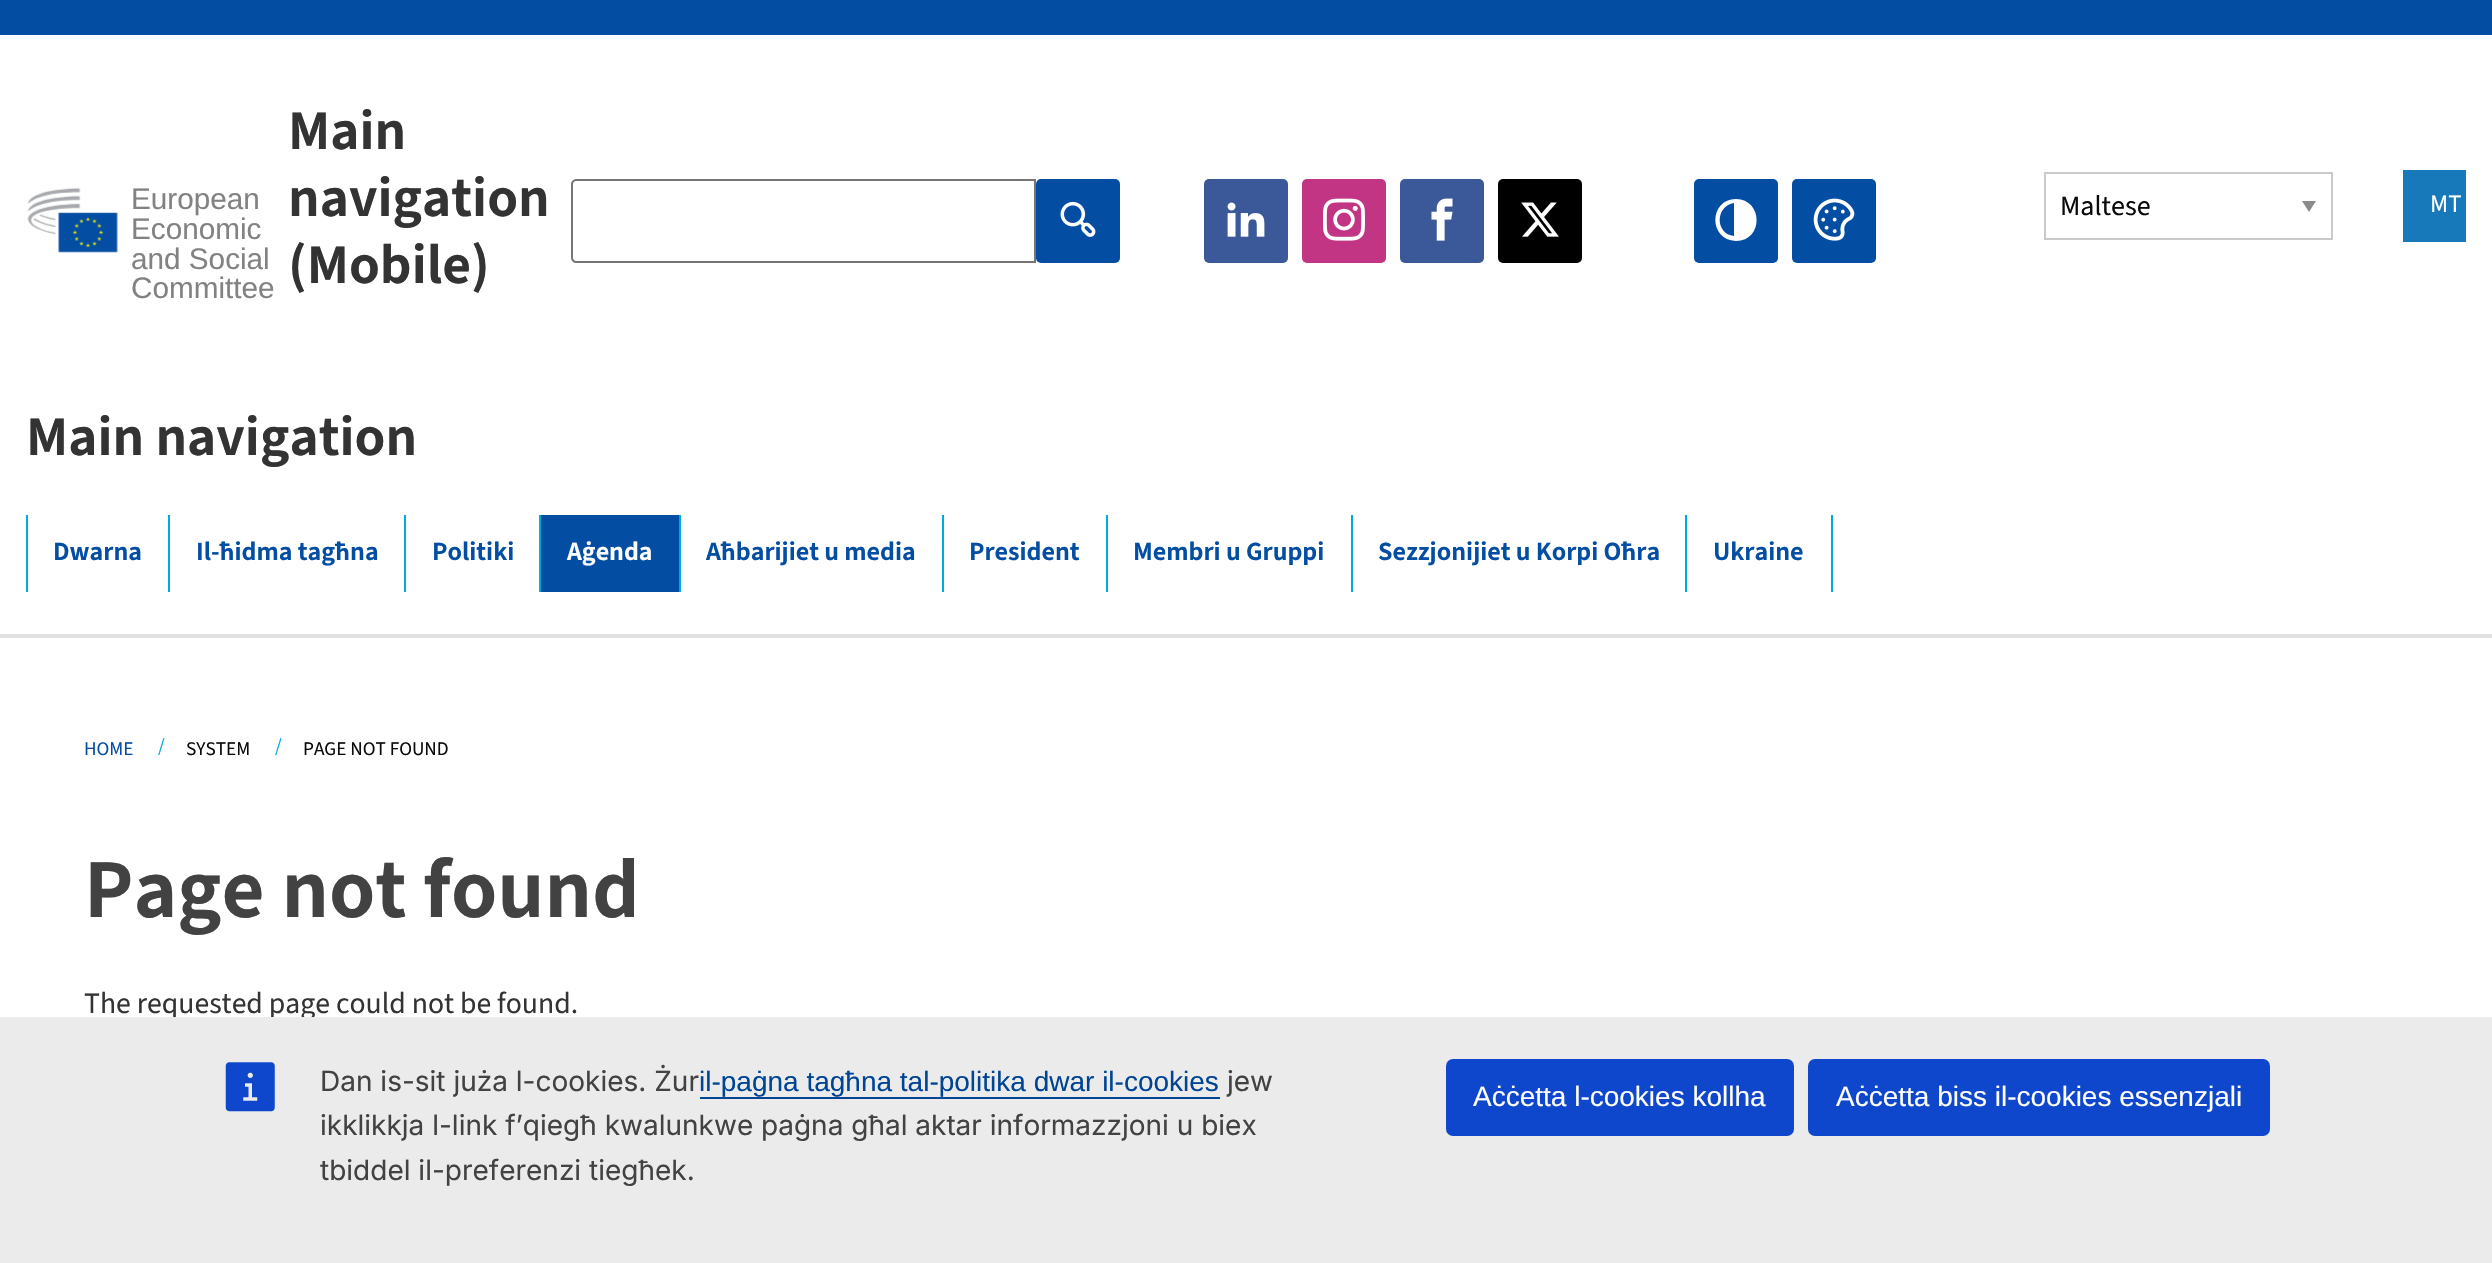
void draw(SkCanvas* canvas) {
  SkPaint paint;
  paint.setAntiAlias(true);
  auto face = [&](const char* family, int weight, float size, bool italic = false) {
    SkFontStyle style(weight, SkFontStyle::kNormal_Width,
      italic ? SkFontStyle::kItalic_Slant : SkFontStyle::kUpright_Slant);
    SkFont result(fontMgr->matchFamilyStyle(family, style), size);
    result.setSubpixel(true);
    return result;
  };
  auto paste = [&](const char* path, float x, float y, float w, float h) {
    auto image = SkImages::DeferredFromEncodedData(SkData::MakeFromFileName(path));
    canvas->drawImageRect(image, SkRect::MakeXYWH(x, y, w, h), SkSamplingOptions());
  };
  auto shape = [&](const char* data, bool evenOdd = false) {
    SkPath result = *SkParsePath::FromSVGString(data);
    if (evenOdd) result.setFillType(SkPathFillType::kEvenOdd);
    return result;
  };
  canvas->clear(0xffffffff);
  paint.setColor(0xff034ea2);
  canvas->drawRect(SkRect::MakeXYWH(0, 0, 2492, 35), paint);
  paint.setColor(0xffe0e0e0);
  canvas->drawRect(SkRect::MakeXYWH(0, 634, 2492, 4), paint);
  paste("img/1.png", 27, 187, 91, 66);
  paint.setStroke(true);
  paint.setStrokeWidth(2);
  paint.setColor(0xff757575);
  canvas->drawPath(shape("M576 180H1035V262H576C574 262 572 260 572 258V184C572 182 574 180 576 180Z"), paint);
  paint.setStroke(false);
  paint.setColor(0xff034ea2);
  canvas->drawRoundRect(SkRect::MakeXYWH(1036, 179, 84, 84), 5, 5, paint);
  paste("img/2.png", 1060, 201, 36, 36);
  paint.setColor(0xff3b5998);
  canvas->drawRoundRect(SkRect::MakeXYWH(1204, 179, 84, 84), 5, 5, paint);
  paste("img/3.png", 1227, 202, 38, 35);
  paint.setColor(0xffc13584);
  canvas->drawRoundRect(SkRect::MakeXYWH(1302, 179, 84, 84), 5, 5, paint);
  paste("img/4.png", 1323, 198, 42, 43);
  paint.setColor(0xff3b5998);
  canvas->drawRoundRect(SkRect::MakeXYWH(1400, 179, 84, 84), 5, 5, paint);
  paste("img/5.png", 1431, 198, 22, 43);
  paint.setColor(0xff000000);
  canvas->drawRoundRect(SkRect::MakeXYWH(1498, 179, 84, 84), 5, 5, paint);
  paste("img/6.png", 1521, 202, 38, 35);
  paint.setColor(0xff034ea2);
  canvas->drawRoundRect(SkRect::MakeXYWH(1694, 179, 84, 84), 5, 5, paint);
  paint.setColor(0xffffffff);
  canvas->drawPath(shape("M1736 199C1709 199 1708 240 1736 241C1764 241 1763 199 1736 199ZM1734 236C1715 234 1715 206 1734 203Z"), paint);
  paint.setColor(0xff034ea2);
  canvas->drawRoundRect(SkRect::MakeXYWH(1792, 179, 84, 84), 5, 5, paint);
  paste("img/7.png", 1813, 198, 42, 43);
  paint.setColor(0xff8a8a8a);
  canvas->drawPath(shape("M2302 201H2316L2309 212Z"), paint);
  paint.setStroke(true);
  paint.setColor(0xffcacaca);
  canvas->drawRect(SkRect::MakeXYWH(2045, 173, 287, 66), paint);
  paint.setStroke(false);
  {
    const struct { float x, y, w, h; SkColor color; } items[] = {
      {2403, 170, 63, 72, 0xff1779ba},
      {26, 515, 2, 77, 0xff00aadb},
      {168, 515, 2, 77, 0xff00aadb},
      {404, 515, 2, 77, 0xff00aadb},
      {541, 515, 138, 77, 0xff034ea2},
      {539, 515, 2, 77, 0xff00aadb},
      {679, 515, 2, 77, 0xff00aadb},
      {942, 515, 2, 77, 0xff00aadb},
      {1106, 515, 2, 77, 0xff00aadb},
      {1351, 515, 2, 77, 0xff00aadb},
      {1831, 515, 2, 77, 0xff00aadb},
      {1685, 515, 2, 77, 0xff00aadb},
    };
    for (auto [x, y, w, h, color] : items) {
      paint.setColor(color);
      canvas->drawRect(SkRect::MakeXYWH(x, y, w, h), paint);
    }
  }
  auto f0 = face("Liberation Sans", 400, 29.7f);
  paint.setColor(0xff828282);
  {
    const struct { const char* s; float x, y; } items[] = {
      {"European", 131, 209},
      {"Economic", 131, 239},
      {"and Social", 131, 269},
      {"Committee", 131, 298},
    };
    for (auto [s, x, y] : items) {
      canvas->drawString(s, x, y, f0, paint);
    }
  }
  auto f1 = face("Source Sans 3", 600, 56);
  paint.setColor(0xff333333);
  {
    const struct { const char* s; float x, y; } items[] = {
      {"Main", 288, 149},
      {"navigation", 288, 216},
      {"(Mobile)", 288, 283},
    };
    for (auto [s, x, y] : items) {
      canvas->drawString(s, x, y, f1, paint);
    }
  }
  auto f2 = face("Source Sans 3", 400, 28);
  paint.setColor(0xff0a0a0a);
  canvas->drawString("Maltese", 2060, 215, f2, paint);
  auto f3 = face("Source Sans 3", 400, 25);
  paint.setColor(0xfffefefe);
  canvas->drawString("MT", 2430, 212, f3, paint);
  paint.setColor(0xff333333);
  canvas->drawString("Main navigation", 26, 455, f1, paint);
  auto f4 = face("Source Sans 3", 600, 26.25f);
  paint.setColor(0xff034ea2);
  {
    const struct { const char* s; float x, y; } items[] = {
      {"Dwarna", 53, 560},
      {"Il-ħidma tagħna", 196, 560},
      {"Politiki", 432, 560},
    };
    for (auto [s, x, y] : items) {
      canvas->drawString(s, x, y, f4, paint);
    }
  }
  paint.setColor(0xfffefefe);
  canvas->drawString("Aġenda", 567, 560, f4, paint);
  paint.setColor(0xff034ea2);
  {
    const struct { const char* s; float x, y; } items[] = {
      {"Aħbarijiet u media", 706, 560},
      {"President", 969, 560},
      {"Membri u Gruppi", 1133, 560},
      {"Sezzjonijiet u Korpi Oħra", 1378, 560},
      {"Ukraine", 1713, 560},
    };
    for (auto [s, x, y] : items) {
      canvas->drawString(s, x, y, f4, paint);
    }
  }
  auto f5 = face("Source Sans 3", 400, 19.25f);
  canvas->drawString("HOME", 84, 755, f5, paint);
  paint.setColor(0xff00aadb);
  canvas->drawString("/", 158, 752, f5, paint);
  paint.setColor(0xff0a0a0a);
  canvas->drawString("SYSTEM", 186, 755, f5, paint);
  paint.setColor(0xff00aadb);
  canvas->drawString("/", 275, 752, f5, paint);
  paint.setColor(0xff0a0a0a);
  canvas->drawString("PAGE NOT FOUND", 303, 755, f5, paint);
  auto f6 = face("Source Sans 3", 600, 84);
  paint.setColor(0xff424242);
  canvas->drawString("Page not found", 84, 917, f6, paint);
  auto f7 = face("Source Sans 3", 400, 29.7f);
  paint.setColor(0xff333333);
  canvas->drawString("The requested page could not be found.", 84, 1013, f7, paint);
  paint.setColor(0xffebebeb);
  canvas->drawRect(SkRect::MakeXYWH(0, 1017, 2492, 246), paint);
  paste("img/8.png", 225, 1062, 50, 50);
  auto f8 = face("Inter", 400, 28);
  paint.setColor(0xff424242);
  canvas->drawString("Dan is-sit juża l-cookies. Żur", 320, 1091, f8, paint);
  auto f9 = face("Liberation Sans", 400, 28);
  paint.setColor(0xff004494);
  canvas->drawString("il-paġna tagħna tal-politika dwar il-cookies", 699, 1091, f9, paint);
  canvas->drawRect(SkRect::MakeXYWH(700, 1097, 520, 2), paint);
  paint.setColor(0xff424242);
  {
    const struct { const char* s; float x, y; } items[] = {
      {"jew", 1227, 1091},
      {"ikklikkja l-link f’qiegħ kwalunkwe paġna għal aktar informazzjoni u biex", 320, 1135},
      {"tbiddel il-preferenzi tiegħek.", 320, 1180},
    };
    for (auto [s, x, y] : items) {
      canvas->drawString(s, x, y, f8, paint);
    }
  }
  paint.setColor(0xff0e47cb);
  canvas->drawRoundRect(SkRect::MakeXYWH(1446, 1059, 348, 77), 7, 7, paint);
  paint.setColor(0xfffefefe);
  canvas->drawString("Aċċetta l-cookies kollha", 1473, 1106, f9, paint);
  paint.setColor(0xff0e47cb);
  canvas->drawRoundRect(SkRect::MakeXYWH(1808, 1059, 462, 77), 7, 7, paint);
  paint.setColor(0xfffefefe);
  canvas->drawString("Aċċetta biss il-cookies essenzjali", 1836, 1106, f9, paint);
}
